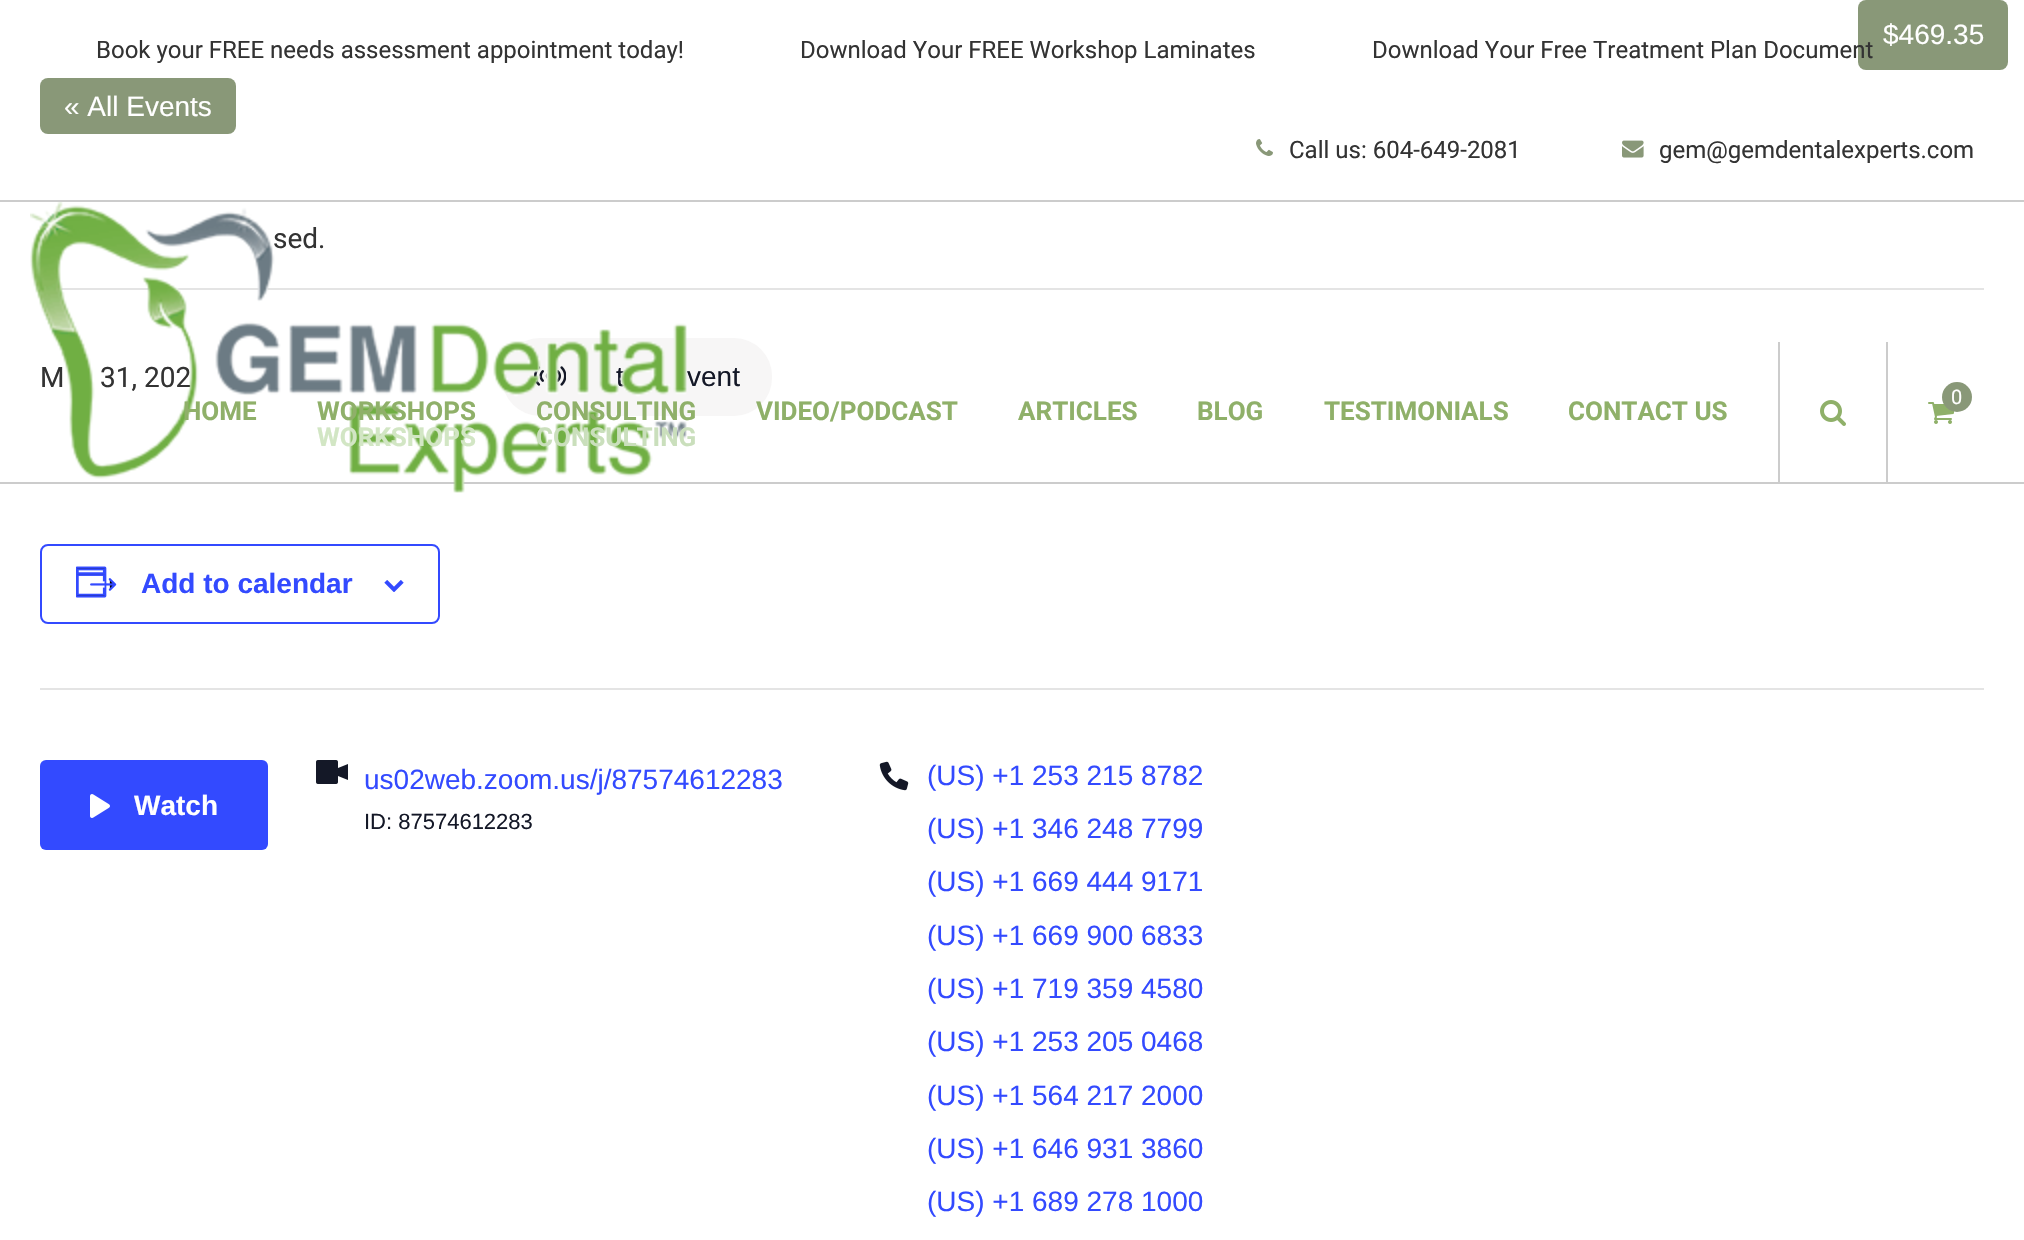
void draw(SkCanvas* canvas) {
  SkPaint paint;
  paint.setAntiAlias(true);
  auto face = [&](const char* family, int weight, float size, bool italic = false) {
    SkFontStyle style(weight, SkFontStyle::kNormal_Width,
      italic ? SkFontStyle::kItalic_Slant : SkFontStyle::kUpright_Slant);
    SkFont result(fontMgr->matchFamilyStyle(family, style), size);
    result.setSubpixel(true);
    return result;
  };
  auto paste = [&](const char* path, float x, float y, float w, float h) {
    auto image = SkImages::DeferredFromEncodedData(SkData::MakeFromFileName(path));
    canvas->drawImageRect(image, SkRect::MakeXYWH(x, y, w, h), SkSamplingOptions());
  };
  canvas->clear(0xffffffff);
  paint.setColor(0xff899878);
  canvas->drawRoundRect(SkRect::MakeXYWH(1858, 0, 150, 70), 8, 8, paint);
  paint.setColor(0xfff7f6f6);
  canvas->drawRoundRect(SkRect::MakeXYWH(502, 338, 270, 78), 38, 38, paint);
  paste("img/1.png", 534, 366, 32, 20);
  paint.setColor(0xff899878);
  canvas->drawRoundRect(SkRect::MakeXYWH(40, 78, 196, 56), 8, 8, paint);
  paint.setColor(0xffe4e4e4);
  canvas->drawRect(SkRect::MakeXYWH(61, 288, 1923, 2), paint);
  paint.setStroke(true);
  paint.setStrokeWidth(2);
  paint.setColor(0xff334aff);
  canvas->drawRoundRect(SkRect::MakeXYWH(41, 545, 398, 78), 7, 7, paint);
  paste("img/2.png", 76, 566, 41, 32);
  paste("img/3.png", 384, 580, 20, 12);
  paint.setStroke(false);
  paint.setColor(0xffe4e4e4);
  canvas->drawRect(SkRect::MakeXYWH(40, 688, 1944, 2), paint);
  paint.setColor(0xff334aff);
  canvas->drawRoundRect(SkRect::MakeXYWH(40, 760, 228, 90), 6, 6, paint);
  paste("img/4.png", 90, 794, 20, 24);
  paste("img/5.png", 316, 760, 32, 24);
  paste("img/6.png", 879, 761, 30, 30);
  paint.setColor(0xffcccccc);
  canvas->drawRect(SkRect::MakeXYWH(0, 482, 2024, 2), paint);
  canvas->drawRect(SkRect::MakeXYWH(0, 200, 2024, 2), paint);
  paste("img/7.png", 1256, 139, 17, 17);
  paste("img/8.png", 1622, 140, 22, 18);
  canvas->drawRect(SkRect::MakeXYWH(1778, 342, 2, 140), paint);
  paste("img/10.png", 1820, 400, 26, 26);
  canvas->drawRect(SkRect::MakeXYWH(1886, 342, 2, 140), paint);
  paste("img/11.png", 1928, 402, 26, 22);
  paint.setColor(0xff899878);
  canvas->drawCircle(1957, 397, 15, paint);
  auto f0 = face("Liberation Sans", 400, 28);
  paint.setColor(0xffffffff);
  canvas->drawString("$469.35", 1883, 44, f0, paint);
  auto f1 = face("Roboto", 400, 28);
  paint.setColor(0xff333333);
  canvas->drawString("M", 40, 387, f1, paint);
  canvas->drawString("31, 202", 100, 387, f1, paint);
  paint.setColor(0xff141827);
  canvas->drawString("t", 616, 386, f0, paint);
  canvas->drawString("vent", 687, 386, f0, paint);
  paint.setColor(0xffffffff);
  canvas->drawString("« All Events", 64, 116, f0, paint);
  paint.setColor(0xff333333);
  canvas->drawString("sed.", 273, 248, f1, paint);
  auto f2 = face("Liberation Sans", 700, 28);
  paint.setColor(0xff334aff);
  canvas->drawString("Add to calendar", 141, 593, f2, paint);
  paint.setColor(0xffffffff);
  canvas->drawString("Watch", 134, 815, f2, paint);
  paint.setColor(0xff334aff);
  canvas->drawString("us02web.zoom.us/j/87574612283", 364, 789, f0, paint);
  auto f3 = face("Liberation Sans", 400, 22);
  paint.setColor(0xff141827);
  canvas->drawString("ID: 87574612283", 364, 829, f3, paint);
  paint.setColor(0xff334aff);
  {
    const struct { const char* s; float x, y; } items[] = {
      {"(US) +1 253 215 8782", 927, 785},
      {"(US) +1 346 248 7799", 927, 838},
      {"(US) +1 669 444 9171", 927, 891},
      {"(US) +1 669 900 6833", 927, 945},
      {"(US) +1 719 359 4580", 927, 998},
      {"(US) +1 253 205 0468", 927, 1051},
      {"(US) +1 564 217 2000", 927, 1105},
      {"(US) +1 646 931 3860", 927, 1158},
      {"(US) +1 689 278 1000", 927, 1211},
    };
    for (auto [s, x, y] : items) {
      canvas->drawString(s, x, y, f0, paint);
    }
  }
  auto f4 = face("Roboto", 400, 24);
  paint.setColor(0xff333333);
  {
    const struct { const char* s; float x, y; } items[] = {
      {"Book your FREE needs assessment appointment today!", 96, 58},
      {"Download Your FREE Workshop Laminates", 800, 58},
      {"Download Your Free Treatment Plan Document", 1372, 58},
      {"Call us: 604-649-2081", 1289, 158},
      {"gem@gemdentalexperts.com", 1659, 158},
    };
    for (auto [s, x, y] : items) {
      canvas->drawString(s, x, y, f4, paint);
    }
  }
  paste("img/9.png", 30, 202, 657, 291);
  auto f5 = face("Roboto", 400, 20);
  paint.setColor(0xffffffff);
  canvas->drawString("0", 1951, 404, f5, paint);
  auto f6 = face("Roboto", 700, 26);
  paint.setColor(0xff8fb069);
  canvas->drawString("HOME", 183, 420, f6, paint);
  canvas->drawString("WORKSHOPS", 317, 420, f6, paint);
  paint.setColor(0xffd2e6c4);
  canvas->drawString("WORKSHOPS", 317, 446, f6, paint);
  paint.setColor(0xff8fb069);
  canvas->drawString("CONSULTING", 536, 420, f6, paint);
  paint.setColor(0xffcadfbc);
  canvas->drawString("CONSULTING", 536, 446, f6, paint);
  paint.setColor(0xff8fb069);
  {
    const struct { const char* s; float x, y; } items[] = {
      {"VIDEO/PODCAST", 756, 420},
      {"ARTICLES", 1018, 420},
      {"BLOG", 1197, 420},
      {"TESTIMONIALS", 1324, 420},
      {"CONTACT US", 1568, 420},
    };
    for (auto [s, x, y] : items) {
      canvas->drawString(s, x, y, f6, paint);
    }
  }
}
